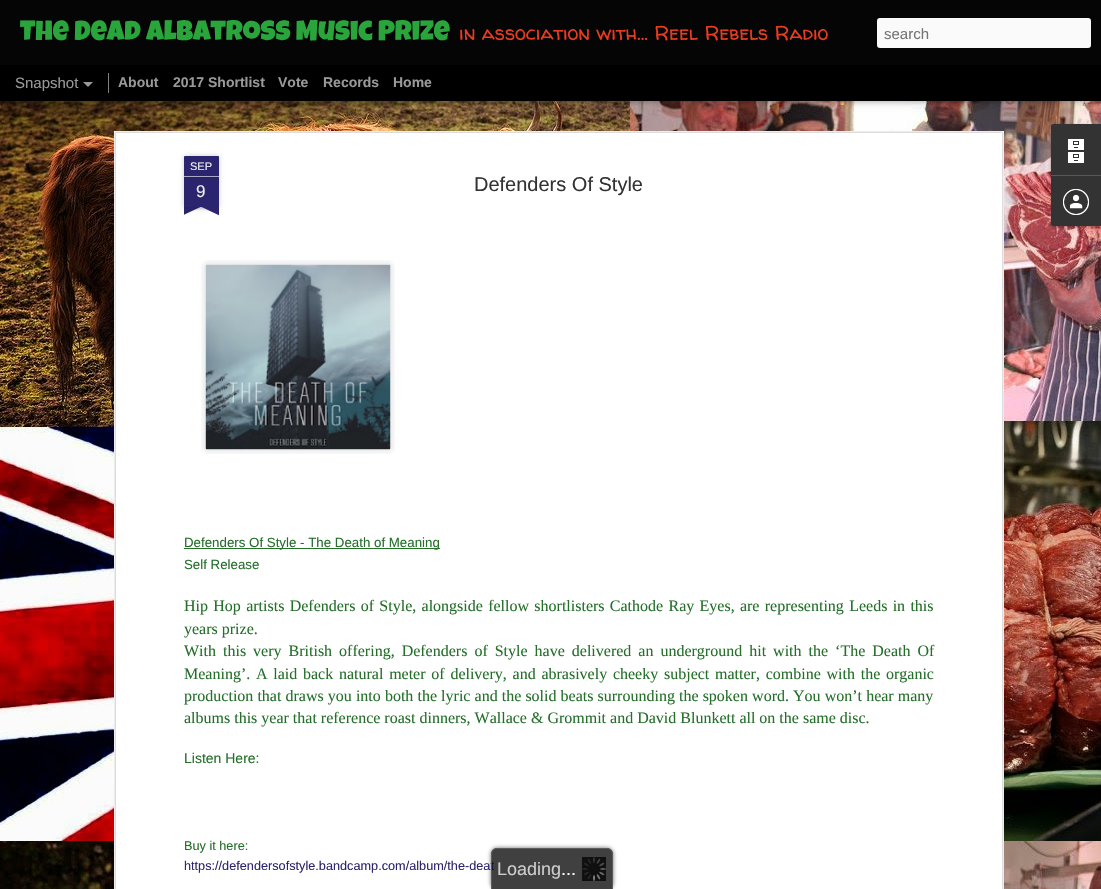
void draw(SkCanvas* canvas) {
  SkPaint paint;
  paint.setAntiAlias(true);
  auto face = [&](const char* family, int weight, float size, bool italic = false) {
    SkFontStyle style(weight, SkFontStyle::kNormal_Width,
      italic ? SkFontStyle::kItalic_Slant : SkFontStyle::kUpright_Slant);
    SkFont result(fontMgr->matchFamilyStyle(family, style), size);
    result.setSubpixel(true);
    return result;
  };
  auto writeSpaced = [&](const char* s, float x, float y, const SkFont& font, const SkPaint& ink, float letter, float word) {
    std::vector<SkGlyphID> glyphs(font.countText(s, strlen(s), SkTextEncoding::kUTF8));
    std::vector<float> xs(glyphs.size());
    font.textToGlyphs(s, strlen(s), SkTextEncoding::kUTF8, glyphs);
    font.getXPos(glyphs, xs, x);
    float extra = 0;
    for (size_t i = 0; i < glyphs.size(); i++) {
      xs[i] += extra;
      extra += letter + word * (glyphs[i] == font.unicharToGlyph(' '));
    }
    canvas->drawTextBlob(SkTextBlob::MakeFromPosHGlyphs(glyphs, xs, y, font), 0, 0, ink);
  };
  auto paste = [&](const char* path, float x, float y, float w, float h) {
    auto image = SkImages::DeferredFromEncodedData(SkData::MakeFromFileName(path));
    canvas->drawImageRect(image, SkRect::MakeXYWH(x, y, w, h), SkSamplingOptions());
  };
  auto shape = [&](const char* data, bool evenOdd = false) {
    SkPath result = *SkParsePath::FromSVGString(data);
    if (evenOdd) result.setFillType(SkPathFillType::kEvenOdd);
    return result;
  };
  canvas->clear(0xff000000);
  paste("img/1.png", 0, 101, 1101, 788);
  paint.setColor(0x80000000);
  paint.setMaskFilter(SkMaskFilter::MakeBlur(kNormal_SkBlurStyle, 4));
  canvas->drawRect(SkRect::MakeXYWH(0, 65, 1101, 35), paint);
  paint.setMaskFilter(nullptr);
  paint.setColor(0xff050505);
  canvas->drawRect(SkRect::MakeXYWH(0, 0, 1101, 65), paint);
  paint.setColor(0xfffafafa);
  canvas->drawRoundRect(SkRect::MakeXYWH(877, 18, 214, 30), 3, 3, paint);
  paint.setColor(0xff999999);
  canvas->drawPath(shape("M83 82H93L88 87Z"), paint);
  paint.setColor(0xff808080);
  canvas->drawRect(SkRect::MakeXYWH(108, 73, 1, 20), paint);
  paint.setColor(0xffffffff);
  canvas->drawRect(SkRect::MakeXYWH(114, 131, 890, 758), paint);
  paste("img/2.png", 114, 131, 890, 758);
  paint.setColor(0x33000000);
  paint.setMaskFilter(SkMaskFilter::MakeBlur(kNormal_SkBlurStyle, 2.5f));
  canvas->drawRect(SkRect::MakeXYWH(184, 177, 35, 30), paint);
  paint.setMaskFilter(nullptr);
  paint.setColor(0xff2b256f);
  canvas->drawRect(SkRect::MakeXYWH(184, 177, 35, 30), paint);
  paint.setColor(0x33000000);
  paint.setMaskFilter(SkMaskFilter::MakeBlur(kNormal_SkBlurStyle, 2.5f));
  canvas->drawRoundRect(SkRect::MakeXYWH(184, 156, 35, 21), 1, 1, paint);
  paint.setMaskFilter(nullptr);
  paint.setColor(0xff2b256f);
  canvas->drawPath(shape("M185 156H218C218.5 156 219 156.5 219 157V177H184V157C184 156.5 184.5 156 185 156Z"), paint);
  paint.setColor(0xffaaa8c5);
  canvas->drawRect(SkRect::MakeXYWH(184, 176, 35, 1), paint);
  canvas->save();
  canvas->clipRect(SkRect::MakeXYWH(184, 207, 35, 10));
  paint.setColor(0x33000000);
  paint.setMaskFilter(SkMaskFilter::MakeBlur(kNormal_SkBlurStyle, 2.5f));
  canvas->drawRect(SkRect::MakeXYWH(175, 197, 50, 10), paint);
  paint.setMaskFilter(nullptr);
  canvas->restore();
  canvas->save();
  canvas->clipRect(SkRect::MakeXYWH(184, 207, 35, 10));
  paint.setColor(0xff2b256f);
  canvas->drawPath(shape("M175 208L220 187L224 196L179 217Z"), paint);
  canvas->restore();
  canvas->save();
  canvas->clipRect(SkRect::MakeXYWH(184, 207, 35, 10));
  paint.setColor(0x33000000);
  paint.setMaskFilter(SkMaskFilter::MakeBlur(kNormal_SkBlurStyle, 2.5f));
  canvas->drawRect(SkRect::MakeXYWH(178, 197, 50, 10), paint);
  paint.setMaskFilter(nullptr);
  canvas->restore();
  canvas->save();
  canvas->clipRect(SkRect::MakeXYWH(184, 207, 35, 10));
  paint.setColor(0xff2b256f);
  canvas->drawPath(shape("M182 187L227 208L223 217L178 196Z"), paint);
  canvas->restore();
  paste("img/3.png", 201, 260, 194, 194);
  paste("img/4.png", 205, 264, 186, 186);
  paint.setColor(0xff256f2b);
  canvas->drawRect(SkRect::MakeXYWH(184, 548, 256, 1), paint);
  paint.setColor(0x4d000000);
  paint.setMaskFilter(SkMaskFilter::MakeBlur(kNormal_SkBlurStyle, 1.5f));
  canvas->drawRoundRect(SkRect::MakeXYWH(1051, 125, 50, 102), 2, 2, paint);
  paint.setMaskFilter(nullptr);
  paint.setColor(0xff333333);
  canvas->drawPath(shape("M1053 124H1101V175H1051V126C1051 125 1052 124 1053 124Z"), paint);
  paste("img/5.png", 1068, 139, 16, 24);
  canvas->drawPath(shape("M1051 175H1101V226H1053C1052 226 1051 225 1051 224Z"), paint);
  paint.setColor(0xff585858);
  canvas->drawRect(SkRect::MakeXYWH(1051, 175, 50, 1), paint);
  paste("img/6.png", 1063, 189, 26, 26);
  canvas->save();
  canvas->clipPath(shape("M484 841H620V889H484ZM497 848H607C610.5 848 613 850.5 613 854V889H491V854C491 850.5 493.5 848 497 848Z", true), true);
  paint.setColor(0xbf333333);
  paint.setMaskFilter(SkMaskFilter::MakeBlur(kNormal_SkBlurStyle, 2));
  canvas->drawRoundRect(SkRect::MakeXYWH(491, 848, 122, 41), 6, 6, paint);
  paint.setMaskFilter(nullptr);
  canvas->restore();
  auto f0 = face("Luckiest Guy", 400, 28);
  paint.setColor(0xff29a53c);
  canvas->drawString("The Dead Albatross Music Prize", 20, 40, f0, paint);
  auto f1 = face("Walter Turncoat", 400, 20);
  paint.setColor(0xffe73c20);
  canvas->drawString("in association with... Reel Rebels Radio", 459, 40, f1, paint);
  auto f2 = face("Liberation Sans", 400, 15);
  paint.setColor(0xff757575);
  canvas->drawString("search", 884, 39, f2, paint);
  paint.setColor(0xff999999);
  canvas->drawString("Snapshot", 15, 88, f2, paint);
  auto f3 = face("Liberation Sans", 700, 14);
  {
    const struct { const char* s; float x, y; } items[] = {
      {"About", 118, 87},
      {"2017 Shortlist", 173, 87},
      {"Vote", 278, 87},
      {"Records", 323, 87},
      {"Home", 393, 87},
    };
    for (auto [s, x, y] : items) {
      canvas->drawString(s, x, y, f3, paint);
    }
  }
  auto f4 = face("Liberation Sans", 400, 11);
  paint.setColor(0xffeeeeee);
  canvas->drawString("SEP", 190, 170, f4, paint);
  auto f5 = face("Liberation Sans", 400, 17);
  canvas->drawString("9", 196, 197, f5, paint);
  auto f6 = face("Liberation Sans", 400, 20);
  paint.setColor(0xff333333);
  canvas->drawString("Defenders Of Style", 474, 191, f6, paint);
  auto f7 = face("Liberation Sans", 400, 13.3f);
  paint.setColor(0xff256f2b);
  canvas->drawString("Defenders Of Style - The Death of Meaning", 184, 547, f7, paint);
  canvas->drawString("Self Release", 184, 569, f7, paint);
  auto f8 = face("Liberation Serif", 400, 16);
  writeSpaced("Hip Hop artists Defenders of Style, alongside fellow shortlisters Cathode Ray Eyes, are representing Leeds in this", 184, 611, f8, paint, 0, 1.3f);
  canvas->drawString("years prize.", 184, 634, f8, paint);
  writeSpaced("With this very British offering, Defenders of Style have delivered an underground hit with the ‘The Death Of", 184, 656, f8, paint, 0, 3);
  writeSpaced("Meaning’. A laid back natural meter of delivery, and abrasively cheeky subject matter, combine with the organic", 184, 679, f8, paint, 0, 1.75f);
  writeSpaced("production that draws you into both the lyric and the solid beats surrounding the spoken word. You won’t hear many", 184, 701, f8, paint, 0, 0.1f);
  canvas->drawString("albums this year that reference roast dinners, Wallace & Grommit and David Blunkett all on the same disc.", 184, 723, f8, paint);
  auto f9 = face("Liberation Sans", 400, 14);
  canvas->drawString("Listen Here:", 184, 763, f9, paint);
  auto f10 = face("Liberation Sans", 400, 12.7f);
  canvas->drawString("Buy it here:", 184, 850, f10, paint);
  paint.setColor(0xff2b256f);
  canvas->drawString("https://defendersofstyle.bandcamp.com/album/the-deat", 184, 870, f10, paint);
  paint.setColor(0xbf000000);
  canvas->drawPath(shape("M497 848H607C610.5 848 613 850.5 613 854V889H491V854C491 850.5 493.5 848 497 848Z"), paint);
  paint.setColor(0xbf666666);
  canvas->drawPath(shape("M497 848H607C610 848 613 851 613 854V889H491V854C491 851 494 848 497 848ZM497 849H607C610 849 612 851 612 854V889H492V854C492 851 494 849 497 849Z", true), paint);
  paste("img/7.png", 582, 857, 24, 24);
  auto f11 = face("Liberation Sans", 400, 18);
  paint.setColor(0xffcdcdce);
  canvas->drawString("Loading", 497, 875, f11, paint);
  paint.setColor(0xffffffff);
  canvas->drawString("...", 561, 875, f11, paint);
}
